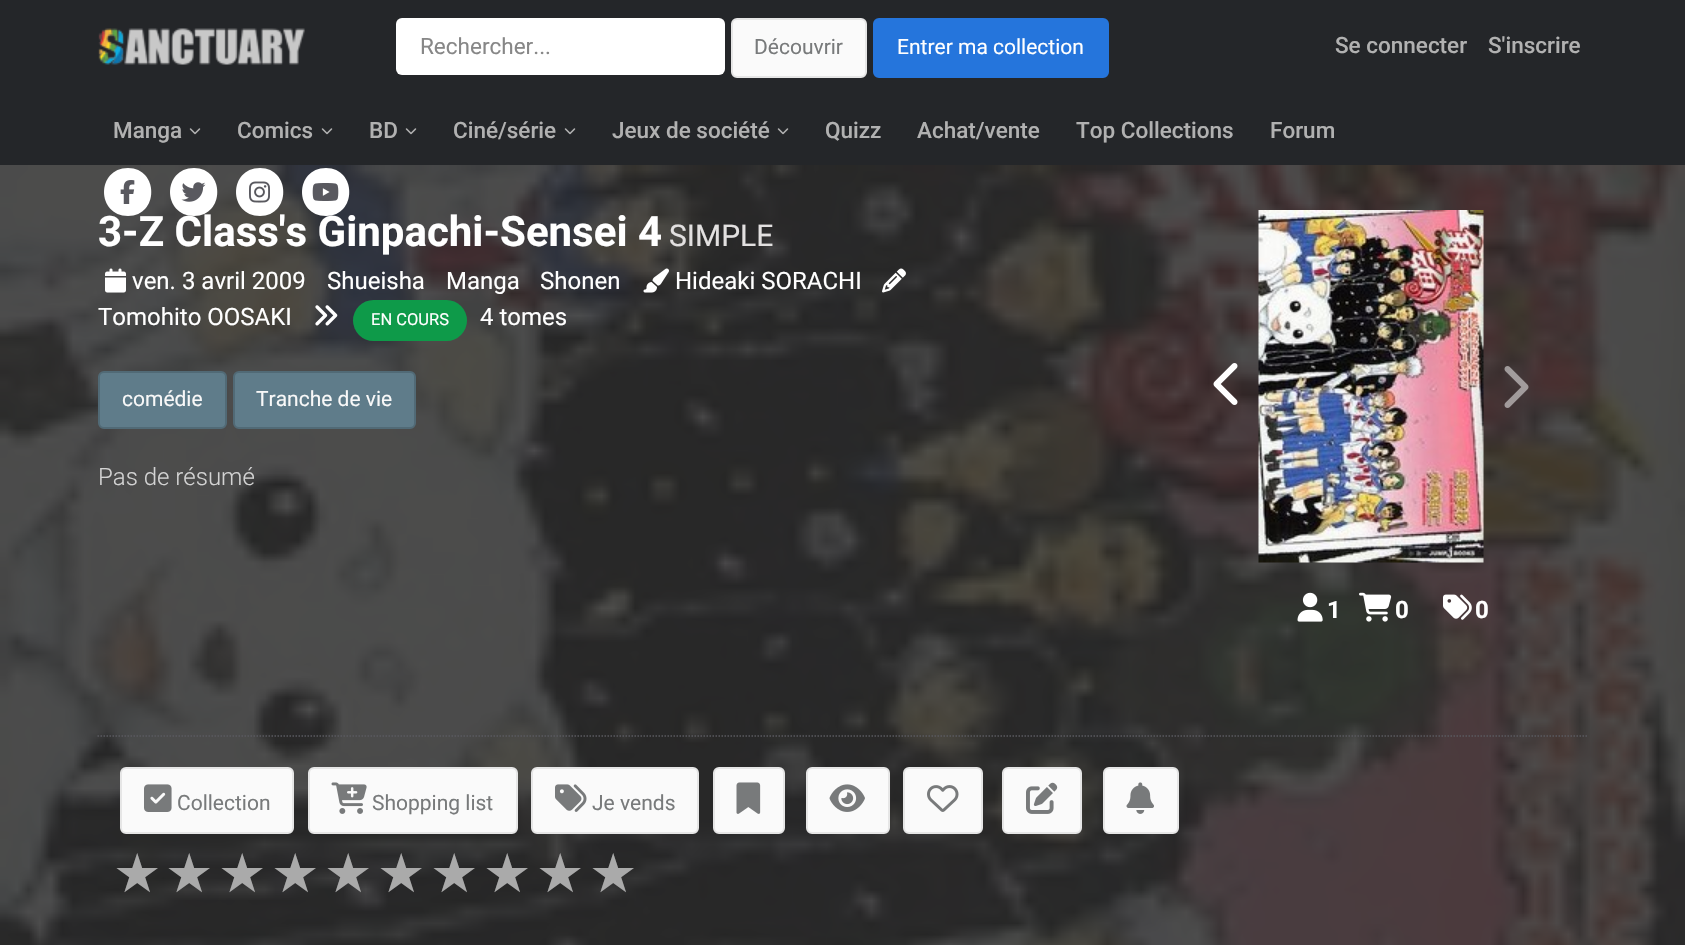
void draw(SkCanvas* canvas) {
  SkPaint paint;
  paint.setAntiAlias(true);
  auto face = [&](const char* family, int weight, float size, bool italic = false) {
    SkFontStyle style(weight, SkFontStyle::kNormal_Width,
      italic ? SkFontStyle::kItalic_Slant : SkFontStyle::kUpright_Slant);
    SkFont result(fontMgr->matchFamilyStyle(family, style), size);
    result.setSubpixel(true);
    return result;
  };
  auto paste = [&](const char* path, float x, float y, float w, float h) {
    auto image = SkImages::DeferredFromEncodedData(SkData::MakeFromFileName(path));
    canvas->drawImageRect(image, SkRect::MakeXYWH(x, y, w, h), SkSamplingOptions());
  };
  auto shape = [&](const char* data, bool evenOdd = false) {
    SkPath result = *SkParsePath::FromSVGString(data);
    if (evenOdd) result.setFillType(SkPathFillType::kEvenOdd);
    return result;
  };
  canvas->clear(0xffffffff);
  paint.setColor(0xff242629);
  canvas->drawRect(SkRect::MakeXYWH(0, 0, 1685, 165), paint);
  paste("img/1.png", 98, 28, 207, 37);
  paint.setColor(0xffffffff);
  canvas->drawRoundRect(SkRect::MakeXYWH(396, 18, 329, 57), 6, 6, paint);
  paint.setColor(0xfffafafa);
  canvas->drawRoundRect(SkRect::MakeXYWH(732, 19, 134, 58), 5, 5, paint);
  paint.setStroke(true);
  paint.setStrokeWidth(2);
  paint.setColor(0xffe6e6e6);
  canvas->drawRoundRect(SkRect::MakeXYWH(732, 19, 134, 58), 5, 5, paint);
  paint.setStroke(false);
  paint.setColor(0xff2575dc);
  canvas->drawRoundRect(SkRect::MakeXYWH(874, 19, 234, 58), 5, 5, paint);
  paint.setStroke(true);
  canvas->drawRoundRect(SkRect::MakeXYWH(874, 19, 234, 58), 5, 5, paint);
  paste("img/2.png", 189, 128, 12, 7);
  paste("img/2.png", 321, 128, 12, 7);
  paste("img/2.png", 405, 128, 12, 7);
  paste("img/2.png", 564, 128, 12, 7);
  paste("img/2.png", 777, 128, 12, 7);
  paste("img/7.png", 0, 165, 1685, 780);
  paint.setStroke(false);
  paint.setColor(0xffffffff);
  canvas->drawPath(shape("M128 216C159 216 159 168 128 168C96 168 96 216 128 216Z"), paint);
  paste("img/3.png", 120, 180, 15, 24);
  canvas->drawPath(shape("M194 216C225 216 225 168 194 168C162 168 162 216 194 216Z"), paint);
  paste("img/4.png", 181, 182, 25, 20);
  canvas->drawPath(shape("M260 216C291 216 291 168 260 168C228 168 228 216 260 216Z"), paint);
  paste("img/5.png", 249, 181, 21, 22);
  canvas->drawPath(shape("M326 216C357 216 357 168 326 168C294 168 294 216 326 216Z"), paint);
  paste("img/6.png", 312, 183, 27, 18);
  paste("img/8.png", 105, 268, 21, 25);
  paste("img/9.png", 643, 268, 26, 25);
  paste("img/10.png", 882, 268, 24, 25);
  paste("img/11.png", 315, 305, 23, 21);
  paint.setColor(0xff0e9a49);
  canvas->drawRoundRect(SkRect::MakeXYWH(353, 300, 114, 41), 20.5f, 20.5f, paint);
  paint.setColor(0xff5f7c8a);
  canvas->drawRoundRect(SkRect::MakeXYWH(99, 372, 127, 56), 5, 5, paint);
  paint.setStroke(true);
  paint.setColor(0xff516a76);
  canvas->drawRoundRect(SkRect::MakeXYWH(99, 372, 127, 56), 5, 5, paint);
  paint.setStroke(false);
  paint.setColor(0xff5f7c8a);
  canvas->drawRoundRect(SkRect::MakeXYWH(234, 372, 181, 56), 5, 5, paint);
  paint.setStroke(true);
  paint.setColor(0xff516a76);
  canvas->drawRoundRect(SkRect::MakeXYWH(234, 372, 181, 56), 5, 5, paint);
  paste("img/12.png", 1213, 363, 25, 42);
  paste("img/13.png", 1258, 210, 226, 353);
  paste("img/14.png", 1504, 366, 25, 42);
  paste("img/15.png", 1297, 592, 26, 30);
  paste("img/16.png", 1359, 592, 33, 30);
  paste("img/17.png", 1443, 594, 29, 26);
  paint.setStrokeWidth(1.5f);
  paint.setColor(0xff59595f);
  paint.setPathEffect(SkDashPathEffect::Make({{1.5f, 1.5f}}, 0));
  canvas->drawPath(shape("M97.5 736H1588.5"), paint);
  paint.setPathEffect(nullptr);
  paint.setStroke(false);
  paint.setColor(0xfffafafa);
  canvas->drawRoundRect(SkRect::MakeXYWH(121, 768, 172, 65), 5, 5, paint);
  paint.setStroke(true);
  paint.setStrokeWidth(2);
  paint.setColor(0xffe6e6e6);
  canvas->drawRoundRect(SkRect::MakeXYWH(121, 768, 172, 65), 5, 5, paint);
  paste("img/18.png", 144, 784, 28, 28);
  paint.setStroke(false);
  paint.setColor(0xfffafafa);
  canvas->drawRoundRect(SkRect::MakeXYWH(309, 768, 208, 65), 5, 5, paint);
  paint.setStroke(true);
  paint.setColor(0xffe6e6e6);
  canvas->drawRoundRect(SkRect::MakeXYWH(309, 768, 208, 65), 5, 5, paint);
  paste("img/19.png", 331, 782, 36, 32);
  paint.setStroke(false);
  paint.setColor(0xfffafafa);
  canvas->drawRoundRect(SkRect::MakeXYWH(532, 768, 166, 65), 5, 5, paint);
  paint.setStroke(true);
  paint.setColor(0xffe6e6e6);
  canvas->drawRoundRect(SkRect::MakeXYWH(532, 768, 166, 65), 5, 5, paint);
  paste("img/20.png", 555, 784, 32, 28);
  paint.setStroke(false);
  paint.setColor(0xfffafafa);
  canvas->drawRoundRect(SkRect::MakeXYWH(714, 768, 70, 65), 5, 5, paint);
  paint.setStroke(true);
  paint.setColor(0xffe6e6e6);
  canvas->drawRoundRect(SkRect::MakeXYWH(714, 768, 70, 65), 5, 5, paint);
  paste("img/21.png", 736, 782, 25, 32);
  paint.setStroke(false);
  paint.setColor(0xfffafafa);
  canvas->drawRoundRect(SkRect::MakeXYWH(807, 768, 82, 65), 5, 5, paint);
  paint.setStroke(true);
  paint.setColor(0xffe6e6e6);
  canvas->drawRoundRect(SkRect::MakeXYWH(807, 768, 82, 65), 5, 5, paint);
  paste("img/22.png", 829, 784, 36, 28);
  paint.setStroke(false);
  paint.setColor(0xfffafafa);
  canvas->drawRoundRect(SkRect::MakeXYWH(904, 768, 78, 65), 5, 5, paint);
  paint.setStroke(true);
  paint.setColor(0xffe6e6e6);
  canvas->drawRoundRect(SkRect::MakeXYWH(904, 768, 78, 65), 5, 5, paint);
  paste("img/23.png", 927, 785, 32, 27);
  paint.setStroke(false);
  paint.setColor(0xfffafafa);
  canvas->drawRoundRect(SkRect::MakeXYWH(1003, 768, 78, 65), 5, 5, paint);
  paint.setStroke(true);
  paint.setColor(0xffe6e6e6);
  canvas->drawRoundRect(SkRect::MakeXYWH(1003, 768, 78, 65), 5, 5, paint);
  paste("img/24.png", 1026, 782, 32, 32);
  paint.setStroke(false);
  paint.setColor(0xfffafafa);
  canvas->drawRoundRect(SkRect::MakeXYWH(1104, 768, 74, 65), 5, 5, paint);
  paint.setStroke(true);
  paint.setColor(0xffe6e6e6);
  canvas->drawRoundRect(SkRect::MakeXYWH(1104, 768, 74, 65), 5, 5, paint);
  paste("img/25.png", 1126, 782, 28, 32);
  auto f0 = face("Roboto", 400, 22.5f);
  paint.setStroke(false);
  paint.setColor(0xff878787);
  canvas->drawString("Rechercher...", 420, 54, f0, paint);
  auto f1 = face("Roboto", 400, 21);
  paint.setColor(0xff787a7b);
  canvas->drawString("Découvrir", 754, 54, f1, paint);
  paint.setColor(0xffffffff);
  canvas->drawString("Entrer ma collection", 897, 54, f1, paint);
  auto f2 = face("Roboto", 500, 22.5f);
  paint.setColor(0xffb1b1b1);
  {
    const struct { const char* s; float x, y; } items[] = {
      {"Se connecter", 1335, 53},
      {"S'inscrire", 1488, 53},
      {"Manga", 113, 138},
      {"Comics", 237, 138},
      {"BD", 369, 138},
      {"Ciné/série", 453, 138},
      {"Jeux de société", 612, 138},
      {"Quizz", 825, 138},
      {"Achat/vente", 917, 138},
      {"Top Collections", 1076, 138},
      {"Forum", 1270, 138},
    };
    for (auto [s, x, y] : items) {
      canvas->drawString(s, x, y, f2, paint);
    }
  }
  auto f3 = face("Roboto", 700, 42);
  paint.setColor(0xffffffff);
  canvas->drawString("3-Z Class's Ginpachi-Sensei 4", 98, 246, f3, paint);
  auto f4 = face("Roboto", 400, 30);
  paint.setColor(0xffe2e0e0);
  canvas->drawString("SIMPLE", 669, 246, f4, paint);
  auto f5 = face("Roboto", 400, 24);
  paint.setColor(0xffffffff);
  {
    const struct { const char* s; float x, y; } items[] = {
      {"ven. 3 avril 2009", 132, 289},
      {"Shueisha", 327, 289},
      {"Manga", 446, 289},
      {"Shonen", 540, 289},
      {"Hideaki SORACHI", 675, 289},
      {"Tomohito OOSAKI", 98, 325},
    };
    for (auto [s, x, y] : items) {
      canvas->drawString(s, x, y, f5, paint);
    }
  }
  auto f6 = face("Roboto", 400, 16.5f);
  canvas->drawString("EN COURS", 371, 325, f6, paint);
  canvas->drawString("4 tomes", 480, 325, f5, paint);
  paint.setColor(0xfff8f8f8);
  canvas->drawString("comédie", 122, 406, f1, paint);
  canvas->drawString("Tranche de vie", 256, 406, f1, paint);
  auto f7 = face("Roboto", 300, 24);
  paint.setColor(0xffd3d3d3);
  canvas->drawString("Pas de résumé", 98, 485, f7, paint);
  auto f8 = face("Roboto", 700, 24);
  paint.setColor(0xffffffff);
  {
    const struct { const char* s; float x, y; } items[] = {
      {"1", 1327, 618},
      {"0", 1395, 618},
      {"0", 1475, 618},
    };
    for (auto [s, x, y] : items) {
      canvas->drawString(s, x, y, f8, paint);
    }
  }
  paint.setColor(0xff787a7b);
  {
    const struct { const char* s; float x, y; } items[] = {
      {"Collection", 177, 810},
      {"Shopping list", 372, 810},
      {"Je vends", 592, 810},
    };
    for (auto [s, x, y] : items) {
      canvas->drawString(s, x, y, f1, paint);
    }
  }
  auto f9 = face("DejaVu Sans", 400, 54);
  paint.setColor(0xffaaaaaa);
  {
    const struct { const char* s; float x, y; } items[] = {
      {"★", 113, 892},
      {"★", 165, 892},
      {"★", 218, 892},
      {"★", 271, 892},
      {"★", 324, 892},
      {"★", 377, 892},
      {"★", 430, 892},
      {"★", 483, 892},
      {"★", 536, 892},
      {"★", 589, 892},
    };
    for (auto [s, x, y] : items) {
      canvas->drawString(s, x, y, f9, paint);
    }
  }
}
